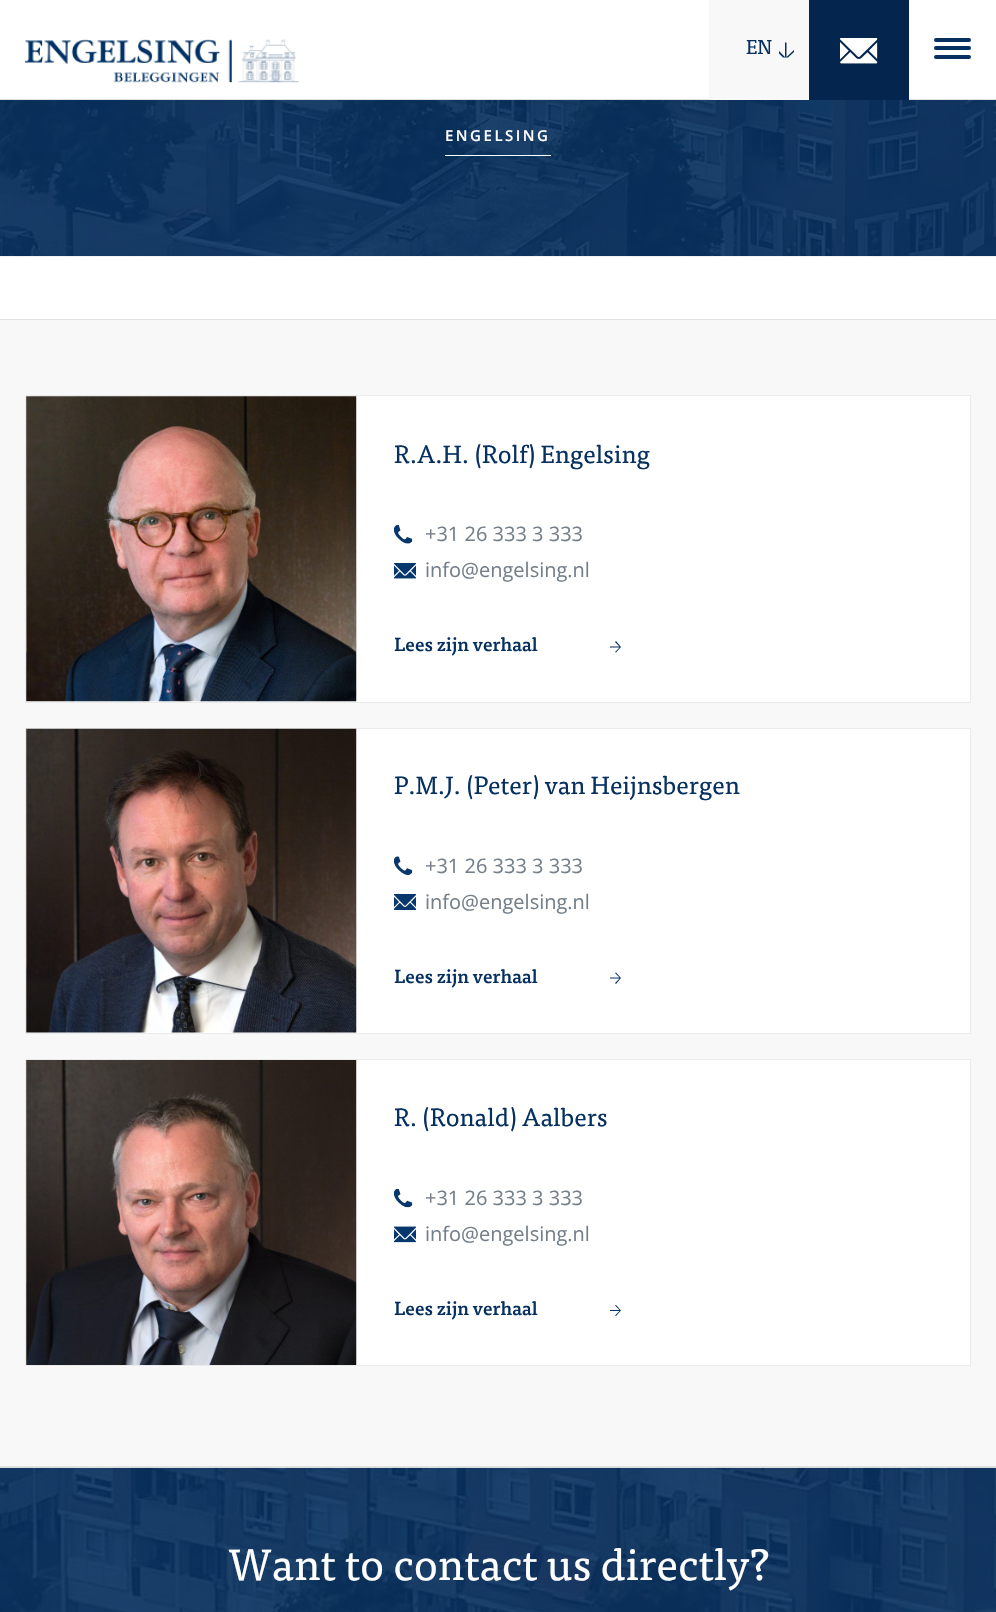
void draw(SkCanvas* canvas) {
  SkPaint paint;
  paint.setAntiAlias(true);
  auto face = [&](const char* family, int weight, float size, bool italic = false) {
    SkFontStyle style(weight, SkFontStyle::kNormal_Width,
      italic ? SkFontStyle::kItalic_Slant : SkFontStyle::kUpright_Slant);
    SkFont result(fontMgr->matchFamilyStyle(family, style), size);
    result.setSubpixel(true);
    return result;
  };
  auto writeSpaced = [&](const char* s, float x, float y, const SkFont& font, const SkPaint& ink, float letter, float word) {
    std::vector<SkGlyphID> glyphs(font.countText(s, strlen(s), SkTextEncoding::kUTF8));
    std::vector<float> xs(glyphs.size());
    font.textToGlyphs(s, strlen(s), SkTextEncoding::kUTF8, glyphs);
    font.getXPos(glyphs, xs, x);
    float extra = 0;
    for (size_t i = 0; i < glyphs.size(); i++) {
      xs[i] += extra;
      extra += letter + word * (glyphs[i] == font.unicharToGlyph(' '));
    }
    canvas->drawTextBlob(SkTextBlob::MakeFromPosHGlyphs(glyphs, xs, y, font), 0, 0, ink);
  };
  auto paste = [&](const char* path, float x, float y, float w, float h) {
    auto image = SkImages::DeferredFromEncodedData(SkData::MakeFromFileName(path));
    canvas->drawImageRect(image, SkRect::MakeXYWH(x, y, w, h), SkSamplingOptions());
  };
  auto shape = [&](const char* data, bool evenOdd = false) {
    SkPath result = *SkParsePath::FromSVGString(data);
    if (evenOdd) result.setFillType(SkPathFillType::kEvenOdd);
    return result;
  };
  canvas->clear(0xffffffff);
  paint.setColor(0xffe2e2e2);
  canvas->drawRect(SkRect::MakeXYWH(0, 99, 996, 1), paint);
  paste("img/1.png", 25, 39, 274, 44);
  paint.setColor(0xfff8f8f8);
  canvas->drawRect(SkRect::MakeXYWH(709, 0, 100, 100), paint);
  paint.setColor(0xff063060);
  canvas->drawPath(shape("M794 52L788 57.5H783L779 53.5V51L785 57V42.5H786.5V57L794 50Z"), paint);
  paint.setColor(0xff04264e);
  canvas->drawRect(SkRect::MakeXYWH(809, 0, 100, 100), paint);
  paste("img/2.png", 840, 38, 38, 26);
  paint.setColor(0xff063060);
  canvas->drawRoundRect(SkRect::MakeXYWH(934, 46, 37, 4), 2, 2, paint);
  canvas->drawRoundRect(SkRect::MakeXYWH(934, 38, 37, 4), 2, 2, paint);
  canvas->drawRoundRect(SkRect::MakeXYWH(934, 55, 37, 4), 2, 2, paint);
  canvas->drawRect(SkRect::MakeXYWH(0, 100, 996, 156), paint);
  paste("img/3.png", 0, 100, 996, 157);
  {
    const struct { float x, y, w, h; SkColor color; } items[] = {
      {445, 155, 106, 1, 0xffffffff},
      {0, 320, 996, 1148, 0xfff8f8f8},
      {0, 319, 996, 1, 0xffe1e1e1},
      {0, 1466, 996, 1, 0xffe1e1e1},
    };
    for (auto [x, y, w, h, color] : items) {
      paint.setColor(color);
      canvas->drawRect(SkRect::MakeXYWH(x, y, w, h), paint);
    }
  }
  paint.setColor(0xffffffff);
  canvas->drawRect(SkRect::MakeXYWH(25.5f, 395.5f, 945, 307), paint);
  paint.setStroke(true);
  paint.setStrokeWidth(1);
  paint.setColor(0xffebebeb);
  canvas->drawRect(SkRect::MakeXYWH(25.5f, 395.5f, 945, 307), paint);
  paste("img/4.png", 26, 396, 331, 306);
  paste("img/5.png", 394, 525, 19, 19);
  paste("img/6.png", 394, 563, 22, 16);
  paint.setStroke(false);
  paint.setColor(0xff063060);
  canvas->drawPath(shape("M616 641L615 642L619.5 646.5H610V647.5H619.5L615 652L616 652.5L621 647Z"), paint);
  paint.setColor(0xffffffff);
  canvas->drawRect(SkRect::MakeXYWH(25.5f, 728.5f, 945, 305), paint);
  paint.setStroke(true);
  paint.setColor(0xffebebeb);
  canvas->drawRect(SkRect::MakeXYWH(25.5f, 728.5f, 945, 305), paint);
  paste("img/7.png", 26, 728, 331, 305);
  paste("img/8.png", 394, 856, 19, 19);
  paste("img/9.png", 394, 894, 22, 16);
  paint.setStroke(false);
  paint.setColor(0xff063060);
  canvas->drawPath(shape("M616 972.5L615 973L619.5 977.5H610V978.5H619.5L615 983L616 984L621 978Z"), paint);
  paint.setColor(0xffffffff);
  canvas->drawRect(SkRect::MakeXYWH(25.5f, 1059.5f, 945, 306), paint);
  paint.setStroke(true);
  paint.setColor(0xffebebeb);
  canvas->drawRect(SkRect::MakeXYWH(25.5f, 1059.5f, 945, 306), paint);
  paste("img/10.png", 26, 1060, 331, 305);
  paste("img/11.png", 394, 1189, 19, 19);
  paste("img/12.png", 394, 1226, 22, 17);
  paint.setStroke(false);
  paint.setColor(0xff063060);
  canvas->drawPath(shape("M616 1305L615 1305.5L619.5 1310H610V1311H619.5L615 1315.5L616 1316L621 1310.5Z"), paint);
  canvas->drawRect(SkRect::MakeXYWH(0, 1468, 996, 144), paint);
  paste("img/13.png", 0, 1467, 996, 145);
  auto f0 = face("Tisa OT", 400, 20);
  canvas->drawString("EN", 746, 54, f0, paint);
  auto f1 = face("Open Sans", 600, 15);
  paint.setColor(0xffffffff);
  writeSpaced("ENGELSING", 445, 141, f1, paint, 2.5f, 0);
  auto f2 = face("Tisa OT", 400, 25);
  paint.setColor(0xff063060);
  canvas->drawString("R.A.H. (Rolf) Engelsing", 394, 463, f2, paint);
  auto f3 = face("Open Sans", 400, 20);
  paint.setColor(0xff747f8a);
  canvas->drawString("+31 26 333 3 333", 425, 541, f3, paint);
  canvas->drawString("info@engelsing.nl", 425, 577, f3, paint);
  auto f4 = face("Tisa OT", 500, 18.75f);
  paint.setColor(0xff063060);
  canvas->drawString("Lees zijn verhaal", 394, 651, f4, paint);
  canvas->drawString("P.M.J. (Peter) van Heijnsbergen", 394, 794, f2, paint);
  paint.setColor(0xff747f8a);
  canvas->drawString("+31 26 333 3 333", 425, 873, f3, paint);
  canvas->drawString("info@engelsing.nl", 425, 909, f3, paint);
  paint.setColor(0xff063060);
  canvas->drawString("Lees zijn verhaal", 394, 983, f4, paint);
  canvas->drawString("R. (Ronald) Aalbers", 394, 1126, f2, paint);
  paint.setColor(0xff747f8a);
  canvas->drawString("+31 26 333 3 333", 425, 1205, f3, paint);
  canvas->drawString("info@engelsing.nl", 425, 1241, f3, paint);
  paint.setColor(0xff063060);
  canvas->drawString("Lees zijn verhaal", 394, 1315, f4, paint);
  auto f5 = face("Tisa OT", 400, 43.75f);
  paint.setColor(0xffffffff);
  canvas->drawString("Want to contact us directly?", 228, 1580, f5, paint);
}
